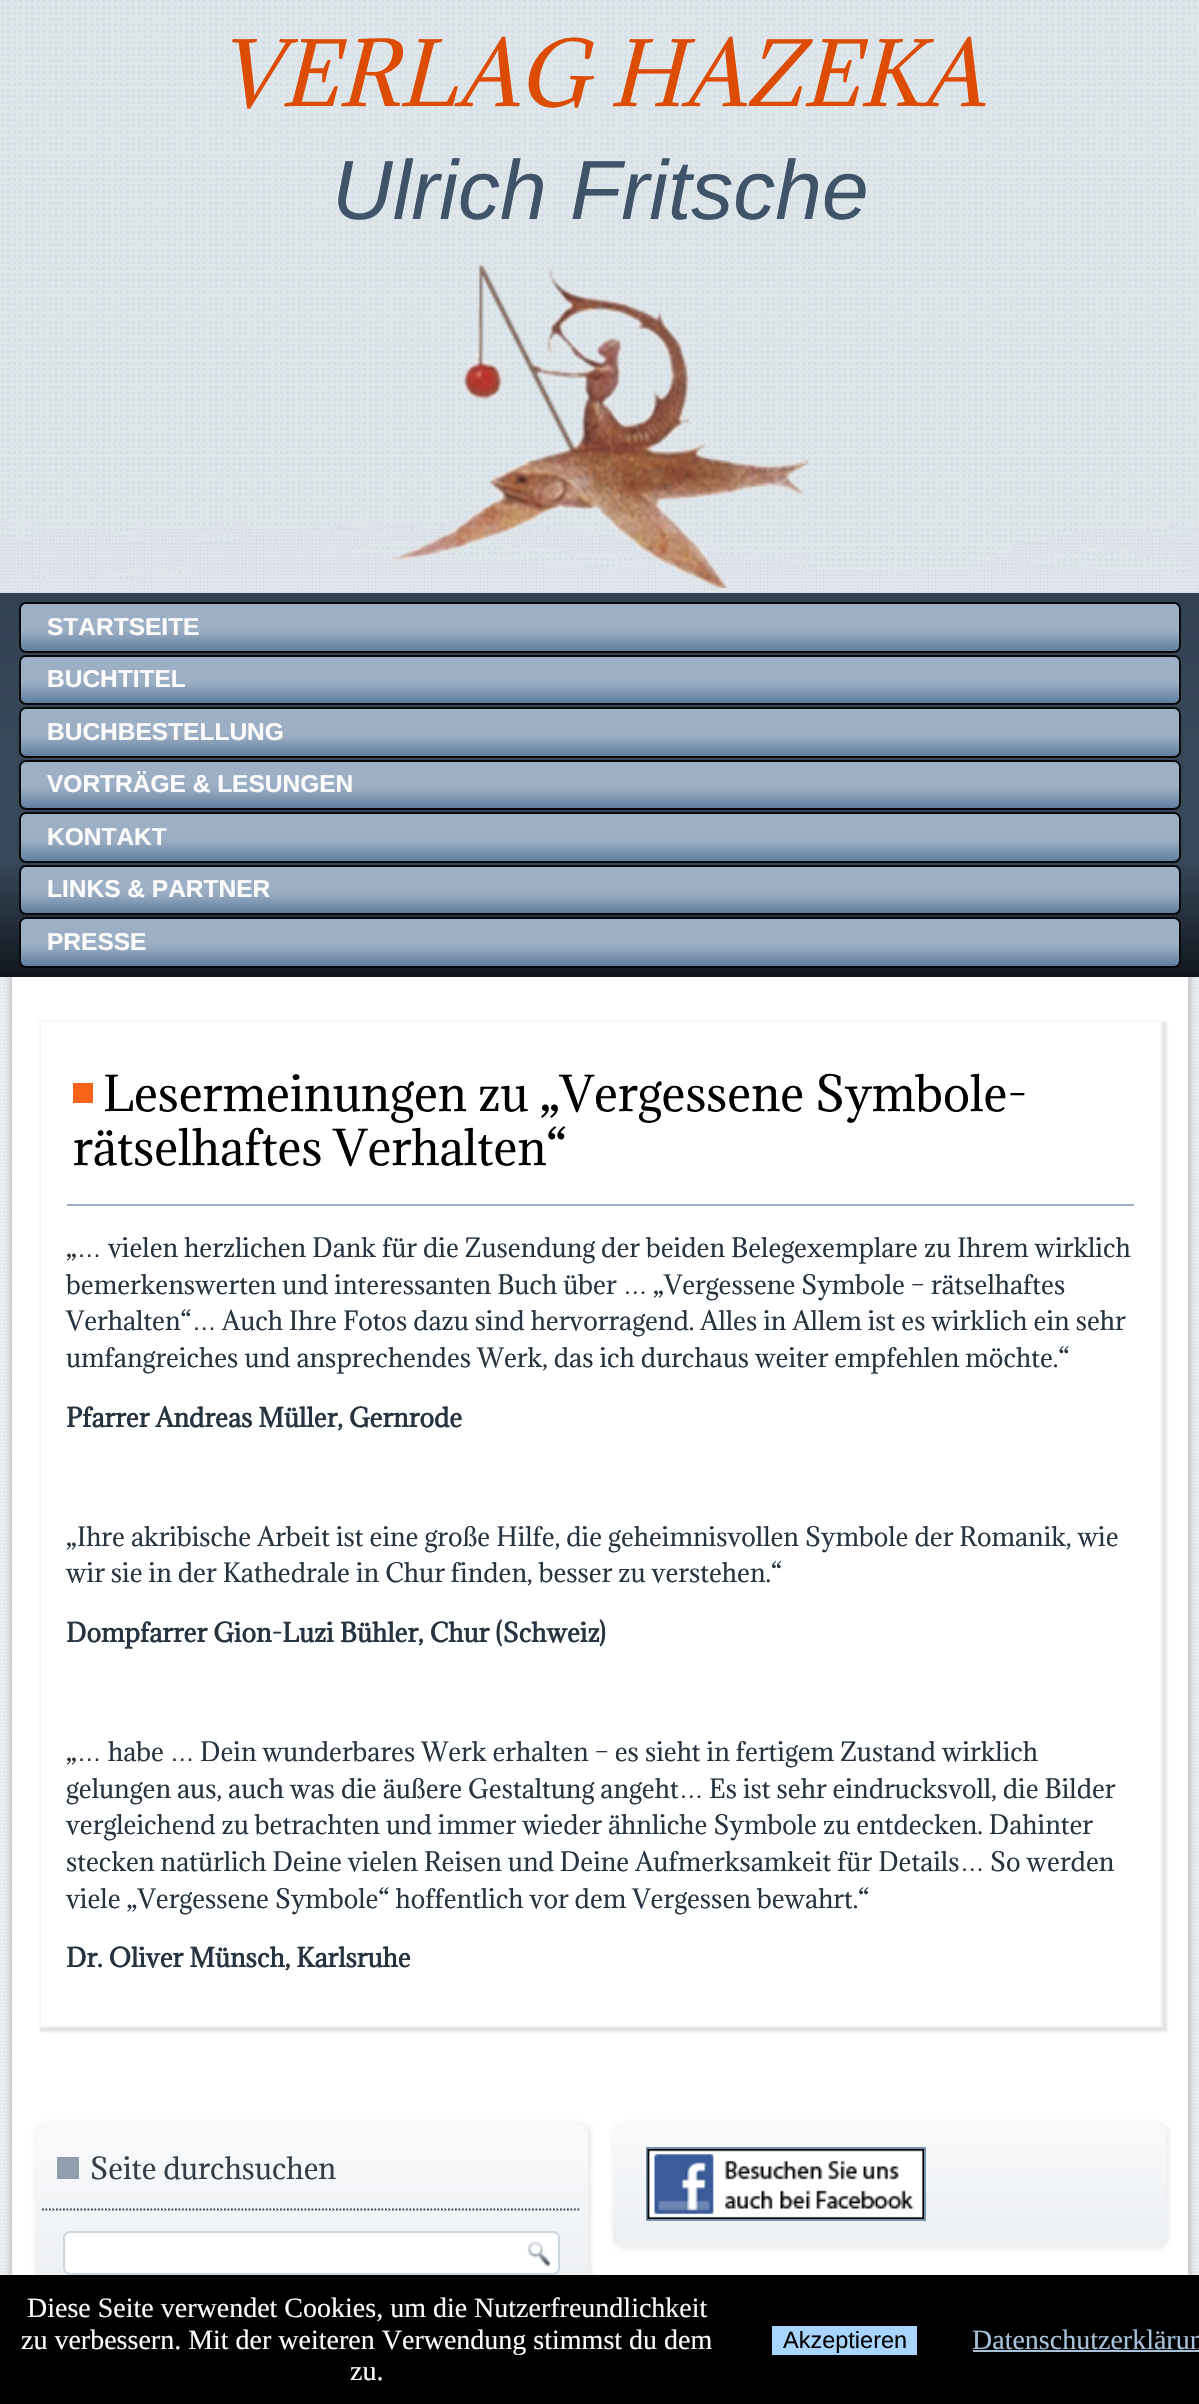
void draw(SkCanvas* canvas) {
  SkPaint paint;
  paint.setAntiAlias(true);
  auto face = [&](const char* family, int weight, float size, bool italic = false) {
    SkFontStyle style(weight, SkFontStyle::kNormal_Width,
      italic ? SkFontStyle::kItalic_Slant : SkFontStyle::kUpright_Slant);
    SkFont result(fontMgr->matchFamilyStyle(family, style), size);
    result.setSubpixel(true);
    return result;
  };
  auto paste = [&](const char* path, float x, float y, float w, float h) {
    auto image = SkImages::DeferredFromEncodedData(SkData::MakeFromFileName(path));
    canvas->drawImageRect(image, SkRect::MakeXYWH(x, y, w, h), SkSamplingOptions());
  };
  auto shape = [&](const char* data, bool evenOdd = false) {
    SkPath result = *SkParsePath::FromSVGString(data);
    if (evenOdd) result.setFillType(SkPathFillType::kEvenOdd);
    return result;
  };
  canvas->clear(0xffffffff);
  paste("img/1.png", 0, 518, 1199, 1757);
  paste("img/2.png", 0, 0, 1199, 582);
  paste("img/3.png", 392, 264, 417, 324);
  paint.setColor(0x26000000);
  paint.setMaskFilter(SkMaskFilter::MakeBlur(kNormal_SkBlurStyle, 2.5f));
  canvas->drawRect(SkRect::MakeXYWH(9, 973, 1183, 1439), paint);
  paint.setMaskFilter(nullptr);
  {
    const SkColor colors[] = {0xff324253, 0xff364759, 0xff364759, 0xff11171d};
    const float stops[] = {0, 0.4f, 0.7f, 1};
    const SkPoint ends[] = {{600, 593}, {600, 977}};
    paint.setShader(SkGradientShader::MakeLinear(ends, colors, stops, 4, SkTileMode::kClamp));
    paint.setAlpha(255);
  }
  canvas->drawRect(SkRect::MakeXYWH(0, 593, 1199, 384), paint);
  {
    const SkColor colors[] = {0xff9cafc4, 0xff9cafc4, 0xff96aac0, 0xff607e9f, 0xff5c7999};
    const float stops[] = {0, 0.5f, 0.6f, 0.96f, 1};
    const SkPoint ends[] = {{600, 602}, {600, 653}};
    paint.setShader(SkGradientShader::MakeLinear(ends, colors, stops, 5, SkTileMode::kClamp));
    paint.setAlpha(255);
  }
  canvas->drawRoundRect(SkRect::MakeXYWH(20, 603, 1160, 49), 6, 6, paint);
  paint.setStroke(true);
  paint.setStrokeWidth(2);
  paint.setShader(nullptr);
  paint.setColor(0xff07090b);
  canvas->drawRoundRect(SkRect::MakeXYWH(20, 603, 1160, 49), 6, 6, paint);
  paint.setStroke(false);
  {
    const SkColor colors[] = {0xff9cafc4, 0xff9cafc4, 0xff96aac0, 0xff607e9f, 0xff5c7999};
    const float stops[] = {0, 0.5f, 0.6f, 0.96f, 1};
    const SkPoint ends[] = {{600, 654}, {600, 705}};
    paint.setShader(SkGradientShader::MakeLinear(ends, colors, stops, 5, SkTileMode::kClamp));
    paint.setAlpha(255);
  }
  canvas->drawRoundRect(SkRect::MakeXYWH(20, 656, 1160, 48), 6, 6, paint);
  paint.setStroke(true);
  paint.setShader(nullptr);
  paint.setColor(0xff07090b);
  canvas->drawRoundRect(SkRect::MakeXYWH(20, 656, 1160, 48), 6, 6, paint);
  paint.setStroke(false);
  {
    const SkColor colors[] = {0xff9cafc4, 0xff9cafc4, 0xff96aac0, 0xff607e9f, 0xff5c7999};
    const float stops[] = {0, 0.5f, 0.6f, 0.96f, 1};
    const SkPoint ends[] = {{600, 707}, {600, 758}};
    paint.setShader(SkGradientShader::MakeLinear(ends, colors, stops, 5, SkTileMode::kClamp));
    paint.setAlpha(255);
  }
  canvas->drawRoundRect(SkRect::MakeXYWH(20, 708, 1160, 49), 6, 6, paint);
  paint.setStroke(true);
  paint.setShader(nullptr);
  paint.setColor(0xff07090b);
  canvas->drawRoundRect(SkRect::MakeXYWH(20, 708, 1160, 49), 6, 6, paint);
  paint.setStroke(false);
  {
    const SkColor colors[] = {0xff9cafc4, 0xff9cafc4, 0xff96aac0, 0xff607e9f, 0xff5c7999};
    const float stops[] = {0, 0.5f, 0.6f, 0.96f, 1};
    const SkPoint ends[] = {{600, 759}, {600, 810}};
    paint.setShader(SkGradientShader::MakeLinear(ends, colors, stops, 5, SkTileMode::kClamp));
    paint.setAlpha(255);
  }
  canvas->drawRoundRect(SkRect::MakeXYWH(20, 761, 1160, 48), 6, 6, paint);
  paint.setStroke(true);
  paint.setShader(nullptr);
  paint.setColor(0xff07090b);
  canvas->drawRoundRect(SkRect::MakeXYWH(20, 761, 1160, 48), 6, 6, paint);
  paint.setStroke(false);
  {
    const SkColor colors[] = {0xff9cafc4, 0xff9cafc4, 0xff96aac0, 0xff607e9f, 0xff5c7999};
    const float stops[] = {0, 0.5f, 0.6f, 0.96f, 1};
    const SkPoint ends[] = {{600, 812}, {600, 863}};
    paint.setShader(SkGradientShader::MakeLinear(ends, colors, stops, 5, SkTileMode::kClamp));
    paint.setAlpha(255);
  }
  canvas->drawRoundRect(SkRect::MakeXYWH(20, 813, 1160, 49), 6, 6, paint);
  paint.setStroke(true);
  paint.setShader(nullptr);
  paint.setColor(0xff07090b);
  canvas->drawRoundRect(SkRect::MakeXYWH(20, 813, 1160, 49), 6, 6, paint);
  paint.setStroke(false);
  {
    const SkColor colors[] = {0xff9cafc4, 0xff9cafc4, 0xff96aac0, 0xff607e9f, 0xff5c7999};
    const float stops[] = {0, 0.5f, 0.6f, 0.96f, 1};
    const SkPoint ends[] = {{600, 864}, {600, 915}};
    paint.setShader(SkGradientShader::MakeLinear(ends, colors, stops, 5, SkTileMode::kClamp));
    paint.setAlpha(255);
  }
  canvas->drawRoundRect(SkRect::MakeXYWH(20, 866, 1160, 48), 6, 6, paint);
  paint.setStroke(true);
  paint.setShader(nullptr);
  paint.setColor(0xff07090b);
  canvas->drawRoundRect(SkRect::MakeXYWH(20, 866, 1160, 48), 6, 6, paint);
  paint.setStroke(false);
  {
    const SkColor colors[] = {0xff9cafc4, 0xff9cafc4, 0xff96aac0, 0xff607e9f, 0xff5c7999};
    const float stops[] = {0, 0.5f, 0.6f, 0.96f, 1};
    const SkPoint ends[] = {{600, 917}, {600, 968}};
    paint.setShader(SkGradientShader::MakeLinear(ends, colors, stops, 5, SkTileMode::kClamp));
    paint.setAlpha(255);
  }
  canvas->drawRoundRect(SkRect::MakeXYWH(20, 918, 1160, 49), 6, 6, paint);
  paint.setStroke(true);
  paint.setShader(nullptr);
  paint.setColor(0xff07090b);
  canvas->drawRoundRect(SkRect::MakeXYWH(20, 918, 1160, 49), 6, 6, paint);
  paint.setStroke(false);
  paint.setColor(0xffffffff);
  canvas->drawRect(SkRect::MakeXYWH(12, 977, 1176, 1298), paint);
  paint.setColor(0x1a000000);
  paint.setMaskFilter(SkMaskFilter::MakeBlur(kNormal_SkBlurStyle, 1));
  canvas->drawRect(SkRect::MakeXYWH(40, 1022, 1127, 1010), paint);
  paint.setMaskFilter(nullptr);
  paint.setColor(0xffffffff);
  canvas->drawRect(SkRect::MakeXYWH(40, 1021, 1121, 1005), paint);
  paint.setStroke(true);
  paint.setColor(0xfff5f7f9);
  canvas->drawRect(SkRect::MakeXYWH(40, 1021, 1121, 1005), paint);
  paint.setStroke(false);
  paint.setColor(0xff9cafc4);
  canvas->drawRect(SkRect::MakeXYWH(67, 1204, 1067, 2), paint);
  paint.setColor(0xfffa6419);
  canvas->drawRect(SkRect::MakeXYWH(73, 1083, 20, 20), paint);
  canvas->save();
  canvas->clipPath(shape("M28 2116H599V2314H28ZM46 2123H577C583 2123 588 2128 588 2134V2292C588 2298 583 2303 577 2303H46C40 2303 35 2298 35 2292V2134C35 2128 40 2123 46 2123Z", true), true);
  paint.setColor(0x12000000);
  paint.setMaskFilter(SkMaskFilter::MakeBlur(kNormal_SkBlurStyle, 2));
  canvas->drawRoundRect(SkRect::MakeXYWH(35, 2123, 557, 184), 12, 12, paint);
  paint.setMaskFilter(nullptr);
  canvas->restore();
  {
    const SkColor colors[] = {0x91f3f5f7, 0x91dde3e9};
    const float stops[] = {0, 1};
    const SkPoint ends[] = {{312, 2123}, {312, 2303}};
    paint.setShader(SkGradientShader::MakeLinear(ends, colors, stops, 2, SkTileMode::kClamp));
    paint.setAlpha(255);
  }
  canvas->drawRoundRect(SkRect::MakeXYWH(35, 2123, 553, 180), 11, 11, paint);
  paint.setStroke(true);
  paint.setStrokeWidth(1.8f);
  paint.setShader(nullptr);
  paint.setColor(0xff303f50);
  paint.setPathEffect(SkDashPathEffect::Make({{1.75f, 1.75f}}, 0));
  canvas->drawPath(shape("M42 2209.5H581"), paint);
  paint.setPathEffect(nullptr);
  paint.setStroke(false);
  paint.setColor(0xff909ead);
  canvas->drawRect(SkRect::MakeXYWH(57, 2157, 22, 22), paint);
  paint.setColor(0xffffffff);
  canvas->drawRoundRect(SkRect::MakeXYWH(64, 2232, 495, 42), 6, 6, paint);
  paint.setStroke(true);
  paint.setStrokeWidth(2);
  paint.setColor(0xffccd6e0);
  canvas->drawRoundRect(SkRect::MakeXYWH(64, 2232, 495, 42), 6, 6, paint);
  paste("img/4.png", 527, 2241, 25, 26);
  canvas->save();
  canvas->clipPath(shape("M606 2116H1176V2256H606ZM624 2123H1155C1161 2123 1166 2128 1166 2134V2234C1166 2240 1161 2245 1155 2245H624C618 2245 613 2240 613 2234V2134C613 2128 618 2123 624 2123Z", true), true);
  paint.setStroke(false);
  paint.setColor(0x12000000);
  paint.setMaskFilter(SkMaskFilter::MakeBlur(kNormal_SkBlurStyle, 2));
  canvas->drawRoundRect(SkRect::MakeXYWH(613, 2123, 556, 126), 12, 12, paint);
  paint.setMaskFilter(nullptr);
  canvas->restore();
  {
    const SkColor colors[] = {0x91f3f5f7, 0x91dde3e9};
    const float stops[] = {0, 1};
    const SkPoint ends[] = {{889, 2123}, {889, 2245}};
    paint.setShader(SkGradientShader::MakeLinear(ends, colors, stops, 2, SkTileMode::kClamp));
    paint.setAlpha(255);
  }
  canvas->drawRoundRect(SkRect::MakeXYWH(613, 2123, 553, 122), 11, 11, paint);
  paint.setStroke(true);
  paint.setShader(nullptr);
  paint.setColor(0xff7993af);
  canvas->drawRect(SkRect::MakeXYWH(647, 2148, 278, 72), paint);
  paste("img/5.png", 647, 2149, 277, 70);
  paint.setStroke(false);
  {
    const struct { float x, y, w, h; SkColor color; } items[] = {
      {0, 2275, 1199, 129, 0xff000000},
      {772, 2326, 145, 29, 0xffa8d5ff},
      {973, 2350, 226, 2, 0xffa8c2db},
    };
    for (auto [x, y, w, h, color] : items) {
      paint.setColor(color);
      canvas->drawRect(SkRect::MakeXYWH(x, y, w, h), paint);
    }
  }
  auto f0 = face("Adamina", 400, 84, true);
  paint.setColor(0xffdc4c04);
  canvas->drawString("VERLAG HAZEKA", 218, 106, f0, paint);
  auto f1 = face("Liberation Sans", 400, 84, true);
  paint.setColor(0xff3f5369);
  canvas->drawString("Ulrich Fritsche", 332, 219, f1, paint);
  auto f2 = face("Liberation Sans", 700, 24.5f);
  paint.setColor(0xfffcfcfd);
  {
    const struct { const char* s; float x, y; } items[] = {
      {"STARTSEITE", 47, 635},
      {"BUCHTITEL", 47, 687},
      {"BUCHBESTELLUNG", 47, 740},
      {"VORTRÄGE & LESUNGEN", 47, 792},
      {"KONTAKT", 47, 845},
      {"LINKS & PARTNER", 47, 897},
      {"PRESSE", 47, 950},
    };
    for (auto [s, x, y] : items) {
      canvas->drawString(s, x, y, f2, paint);
    }
  }
  auto f3 = face("Adamina", 400, 45.5f);
  paint.setColor(0xff000000);
  canvas->drawString("Lesermeinungen zu „Vergessene Symbole-", 103, 1111, f3, paint);
  canvas->drawString("rätselhaftes Verhalten“", 73, 1165, f3, paint);
  auto f4 = face("Adamina", 400, 24.5f);
  paint.setColor(0xff263340);
  canvas->drawString("„", 66, 1257, f4, paint);
  auto f5 = face("Liberation Sans", 400, 24.5f);
  canvas->drawString("…", 77, 1257, f5, paint);
  canvas->drawString("vielen herzlichen Dank für die Zusendung der beiden Belegexemplare zu Ihrem wirklich", 108, 1257, f4, paint);
  canvas->drawString("bemerkenswerten und interessanten Buch über", 66, 1294, f4, paint);
  canvas->drawString("…", 623, 1294, f5, paint);
  canvas->drawString("„Vergessene Symbole – rätselhaftes", 653, 1294, f4, paint);
  canvas->drawString("Verhalten“", 66, 1330, f4, paint);
  canvas->drawString("…", 192, 1330, f5, paint);
  canvas->drawString("Auch Ihre Fotos dazu sind hervorragend. Alles in Allem ist es wirklich ein sehr", 222, 1330, f4, paint);
  canvas->drawString("umfangreiches und ansprechendes Werk, das ich durchaus weiter empfehlen möchte.“", 66, 1367, f4, paint);
  auto f6 = face("Adamina", 700, 24.5f);
  canvas->drawString("Pfarrer Andreas Müller, Gernrode", 66, 1427, f6, paint);
  canvas->drawString("„Ihre akribische Arbeit ist eine große Hilfe, die geheimnisvollen Symbole der Romanik, wie", 66, 1546, f4, paint);
  canvas->drawString("wir sie in der Kathedrale in Chur finden, besser zu verstehen.“", 66, 1582, f4, paint);
  canvas->drawString("Dompfarrer Gion-Luzi Bühler, Chur (Schweiz)", 66, 1642, f6, paint);
  canvas->drawString("„", 66, 1761, f4, paint);
  canvas->drawString("…", 77, 1761, f5, paint);
  canvas->drawString("habe", 108, 1761, f4, paint);
  canvas->drawString("…", 170, 1761, f5, paint);
  canvas->drawString("Dein wunderbares Werk erhalten – es sieht in fertigem Zustand wirklich", 200, 1761, f4, paint);
  canvas->drawString("gelungen aus, auch was die äußere Gestaltung angeht", 66, 1798, f4, paint);
  canvas->drawString("…", 679, 1798, f5, paint);
  {
    const struct { const char* s; float x, y; } items[] = {
      {"Es ist sehr eindrucksvoll, die Bilder", 709, 1798},
      {"vergleichend zu betrachten und immer wieder ähnliche Symbole zu entdecken. Dahinter", 66, 1834},
      {"stecken natürlich Deine vielen Reisen und Deine Aufmerksamkeit für Details", 66, 1871},
    };
    for (auto [s, x, y] : items) {
      canvas->drawString(s, x, y, f4, paint);
    }
  }
  canvas->drawString("…", 960, 1871, f5, paint);
  canvas->drawString("So werden", 990, 1871, f4, paint);
  canvas->drawString("viele „Vergessene Symbole“ hoffentlich vor dem Vergessen bewahrt.“", 66, 1908, f4, paint);
  canvas->drawString("Dr. Oliver Münsch, Karlsruhe", 66, 1967, f6, paint);
  auto f7 = face("Adamina", 400, 28);
  paint.setColor(0xff343d46);
  canvas->drawString("Seite durchsuchen", 90, 2179, f7, paint);
  auto f8 = face("Liberation Serif", 400, 28);
  paint.setColor(0xfffcfcfd);
  {
    const struct { const char* s; float x, y; } items[] = {
      {"Diese Seite verwendet Cookies, um die Nutzerfreundlichkeit", 27, 2317},
      {"zu verbessern. Mit der weiteren Verwendung stimmst du dem", 21, 2349},
      {"zu.", 350, 2380},
    };
    for (auto [s, x, y] : items) {
      canvas->drawString(s, x, y, f8, paint);
    }
  }
  auto f9 = face("Liberation Sans", 400, 23.5f);
  paint.setColor(0xff000000);
  canvas->drawString("Akzeptieren", 783, 2348, f9, paint);
  paint.setColor(0xffa8c2db);
  canvas->drawString("Datenschutzerklärun", 972, 2349, f8, paint);
}
